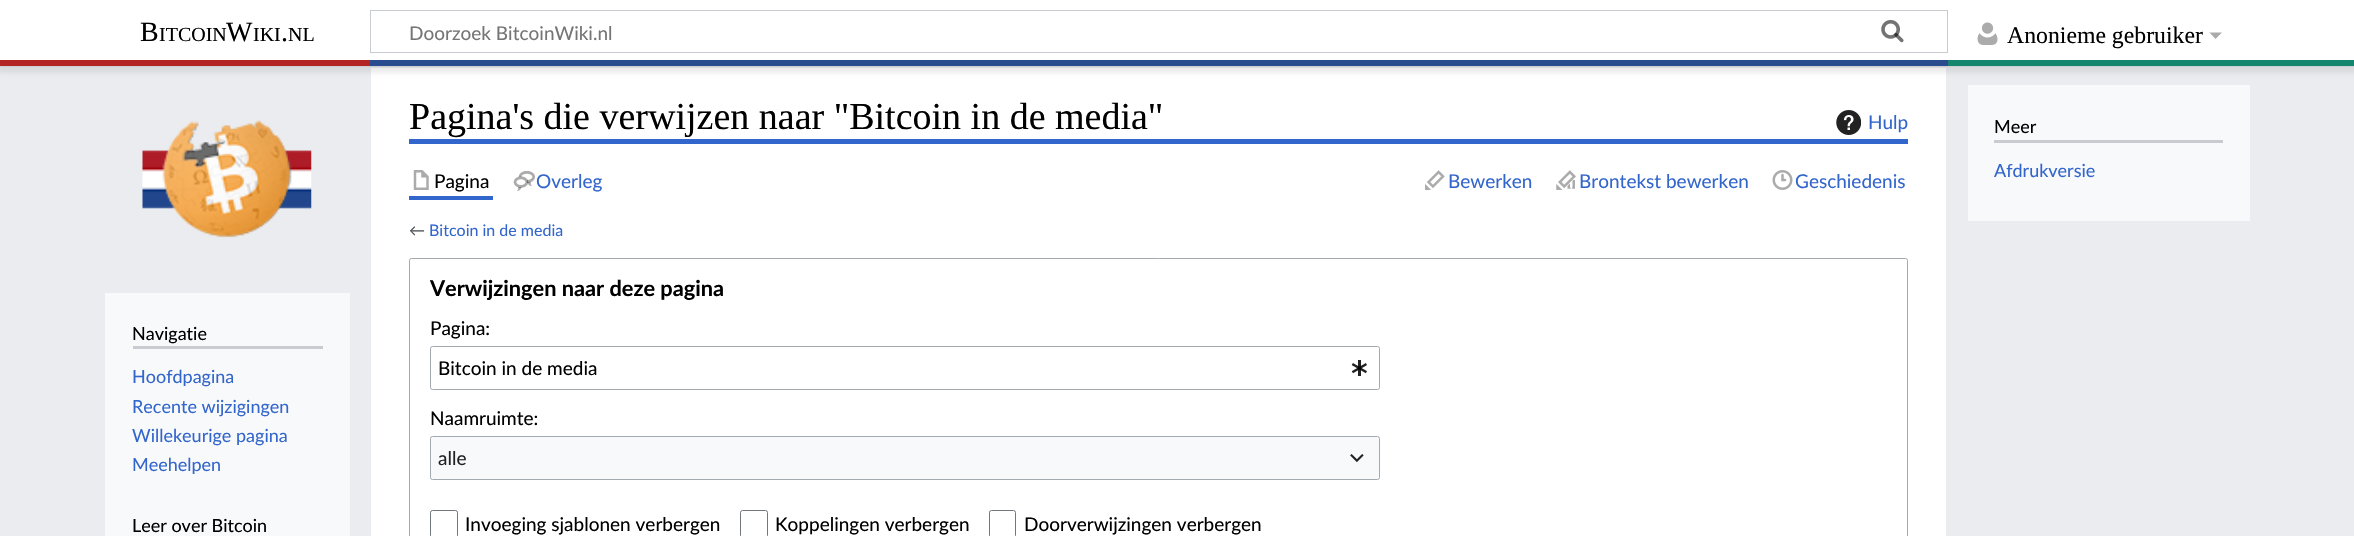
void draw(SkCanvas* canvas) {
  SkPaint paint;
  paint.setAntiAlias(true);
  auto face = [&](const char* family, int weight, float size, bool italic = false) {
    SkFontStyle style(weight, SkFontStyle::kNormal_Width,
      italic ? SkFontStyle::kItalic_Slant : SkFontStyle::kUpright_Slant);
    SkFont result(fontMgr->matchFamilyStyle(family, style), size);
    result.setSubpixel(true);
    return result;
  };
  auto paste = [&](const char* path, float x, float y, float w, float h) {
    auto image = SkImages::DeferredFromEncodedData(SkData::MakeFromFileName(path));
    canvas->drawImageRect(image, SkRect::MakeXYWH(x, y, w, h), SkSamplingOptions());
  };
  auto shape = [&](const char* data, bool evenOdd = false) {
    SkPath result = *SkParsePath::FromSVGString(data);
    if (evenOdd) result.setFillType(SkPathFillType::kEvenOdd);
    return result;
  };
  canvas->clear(0xffeaecf0);
  paint.setColor(0xffffffff);
  canvas->drawRect(SkRect::MakeXYWH(371, 68, 1575, 468), paint);
  paint.setColor(0x33000000);
  paint.setMaskFilter(SkMaskFilter::MakeBlur(kNormal_SkBlurStyle, 1));
  canvas->drawRect(SkRect::MakeXYWH(0, 60, 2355, 6), paint);
  paint.setMaskFilter(nullptr);
  paint.setColor(0x12000000);
  paint.setMaskFilter(SkMaskFilter::MakeBlur(kNormal_SkBlurStyle, 2));
  canvas->drawRect(SkRect::MakeXYWH(-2, 61, 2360, 12), paint);
  paint.setMaskFilter(nullptr);
  paint.setColor(0xffffffff);
  canvas->drawRect(SkRect::MakeXYWH(0, 0, 2354, 60), paint);
  paint.setStroke(true);
  paint.setStrokeWidth(1);
  paint.setColor(0xffc8ccd1);
  canvas->drawRect(SkRect::MakeXYWH(370.5f, 10.5f, 1577, 42), paint);
  paste("img/1.png", 1881, 20, 23, 23);
  paste("img/2.png", 1881, 20, 23, 23);
  paste("img/3.png", 1977, 22, 21, 23);
  paint.setStroke(false);
  paint.setColor(0xffababab);
  canvas->drawPath(shape("M2222 32.5L2215.5 39L2209.5 32.5Z"), paint);
  {
    const struct { float x, y, w, h; SkColor color; } items[] = {
      {0, 60, 370, 6, 0xffb32424},
      {370, 60, 1578, 6, 0xff2a4b8d},
      {1948, 60, 406, 6, 0xff14866d},
      {409, 139, 1499, 5, 0xff3366cc},
    };
    for (auto [x, y, w, h, color] : items) {
      paint.setColor(color);
      canvas->drawRect(SkRect::MakeXYWH(x, y, w, h), paint);
    }
  }
  paste("img/4.png", 1836, 110, 25, 25);
  canvas->drawRect(SkRect::MakeXYWH(409, 196, 84, 4), paint);
  paste("img/5.png", 413, 170, 16, 20);
  paste("img/6.png", 513, 171, 22, 21);
  paste("img/7.png", 1425, 170, 20, 20);
  paste("img/8.png", 1556, 170, 20, 20);
  paste("img/9.png", 1772, 170, 21, 20);
  paint.setStroke(true);
  paint.setColor(0xffa2a9b1);
  canvas->drawRoundRect(SkRect::MakeXYWH(409.5f, 258.5f, 1498, 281), 2, 2, paint);
  canvas->drawRoundRect(SkRect::MakeXYWH(430.5f, 346.5f, 949, 43), 2, 2, paint);
  paste("img/10.png", 1351, 360, 16, 16);
  paint.setStroke(false);
  paint.setColor(0xfff8f9fa);
  canvas->drawRoundRect(SkRect::MakeXYWH(430.5f, 436.5f, 949, 43), 2, 2, paint);
  paint.setStroke(true);
  paint.setColor(0xffa2a9b1);
  canvas->drawRoundRect(SkRect::MakeXYWH(430.5f, 436.5f, 949, 43), 2, 2, paint);
  paste("img/11.png", 1350, 454, 14, 9);
  paint.setColor(0xff72777d);
  canvas->drawRoundRect(SkRect::MakeXYWH(430.5f, 510.5f, 27, 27), 2, 2, paint);
  canvas->drawRoundRect(SkRect::MakeXYWH(740.5f, 510.5f, 27, 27), 2, 2, paint);
  canvas->drawRoundRect(SkRect::MakeXYWH(989.5f, 510.5f, 26, 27), 2, 2, paint);
  paint.setStroke(false);
  paint.setColor(0xfff8f9fa);
  canvas->drawRect(SkRect::MakeXYWH(1968, 85, 282, 136), paint);
  paint.setColor(0xffc8ccd1);
  canvas->drawRect(SkRect::MakeXYWH(1994, 140, 229, 3), paint);
  paste("img/12.png", 142, 120, 170, 118);
  paint.setColor(0xfff8f9fa);
  canvas->drawRect(SkRect::MakeXYWH(105, 293, 245, 243), paint);
  paint.setColor(0xffc8ccd1);
  canvas->drawRect(SkRect::MakeXYWH(133, 346, 190, 3), paint);
  auto f0 = face("Liberation Serif", 400, 28);
  paint.setColor(0xff000000);
  canvas->drawString("B", 140, 41, f0, paint);
  auto f1 = face("Liberation Serif", 400, 20);
  canvas->drawString("ITCOIN", 159, 41, f1, paint);
  canvas->drawString("W", 226, 41, f0, paint);
  canvas->drawString("IKI", 253, 41, f1, paint);
  canvas->drawString(".", 281, 41, f0, paint);
  canvas->drawString("NL", 288, 41, f1, paint);
  auto f2 = face("Lato", 400, 19);
  paint.setColor(0xff757575);
  canvas->drawString("Doorzoek BitcoinWiki.nl", 409, 40, f2, paint);
  auto f3 = face("Liberation Serif", 400, 23.75f);
  paint.setColor(0xff000000);
  canvas->drawString("Anonieme gebruiker", 2007, 43, f3, paint);
  auto f4 = face("Liberation Serif", 400, 38);
  canvas->drawString("Pagina's die verwijzen naar \"Bitcoin in de media\"", 409, 129, f4, paint);
  paint.setColor(0xff3366cc);
  canvas->drawString("Hulp", 1868, 129, f2, paint);
  paint.setColor(0xff000000);
  canvas->drawString("Pagina", 434, 188, f2, paint);
  paint.setColor(0xff3366cc);
  {
    const struct { const char* s; float x, y; } items[] = {
      {"Overleg", 536, 188},
      {"Bewerken", 1448, 188},
      {"Brontekst bewerken", 1579, 188},
      {"Geschiedenis", 1795, 188},
    };
    for (auto [s, x, y] : items) {
      canvas->drawString(s, x, y, f2, paint);
    }
  }
  auto f5 = face("Lato", 400, 16);
  paint.setColor(0xff54595d);
  canvas->drawString("←", 409, 236, f5, paint);
  paint.setColor(0xff3366cc);
  canvas->drawString("Bitcoin in de media", 429, 236, f5, paint);
  auto f6 = face("Lato", 700, 21.75f);
  paint.setColor(0xff000000);
  canvas->drawString("Verwijzingen naar deze pagina", 430, 296, f6, paint);
  {
    const struct { const char* s; float x, y; } items[] = {
      {"Pagina:", 430, 335},
      {"Bitcoin in de media", 438, 375},
      {"Naamruimte:", 430, 425},
    };
    for (auto [s, x, y] : items) {
      canvas->drawString(s, x, y, f2, paint);
    }
  }
  paint.setColor(0xff202122);
  canvas->drawString("alle", 438, 465, f2, paint);
  paint.setColor(0xff000000);
  {
    const struct { const char* s; float x, y; } items[] = {
      {"Invoeging sjablonen verbergen", 465, 531},
      {"Koppelingen verbergen", 775, 531},
      {"Doorverwijzingen verbergen", 1024, 531},
    };
    for (auto [s, x, y] : items) {
      canvas->drawString(s, x, y, f2, paint);
    }
  }
  auto f7 = face("Lato", 400, 18);
  canvas->drawString("Meer", 1994, 133, f7, paint);
  paint.setColor(0xff3366cc);
  canvas->drawString("Afdrukversie", 1994, 177, f7, paint);
  paint.setColor(0xff000000);
  canvas->drawString("Navigatie", 132, 340, f7, paint);
  paint.setColor(0xff3366cc);
  {
    const struct { const char* s; float x, y; } items[] = {
      {"Hoofdpagina", 132, 383},
      {"Recente wijzigingen", 132, 413},
      {"Willekeurige pagina", 132, 442},
      {"Meehelpen", 132, 471},
    };
    for (auto [s, x, y] : items) {
      canvas->drawString(s, x, y, f7, paint);
    }
  }
  paint.setColor(0xff000000);
  canvas->drawString("Leer over Bitcoin", 132, 532, f7, paint);
}
